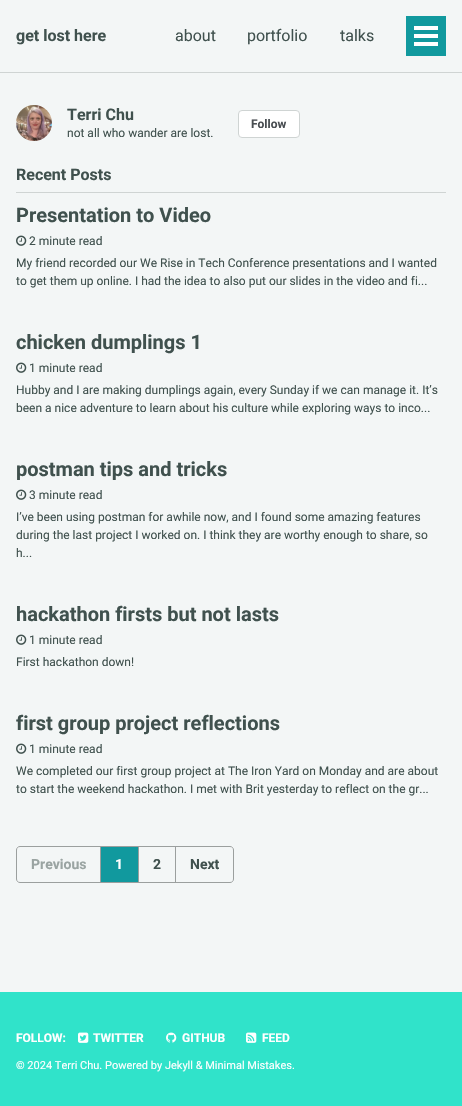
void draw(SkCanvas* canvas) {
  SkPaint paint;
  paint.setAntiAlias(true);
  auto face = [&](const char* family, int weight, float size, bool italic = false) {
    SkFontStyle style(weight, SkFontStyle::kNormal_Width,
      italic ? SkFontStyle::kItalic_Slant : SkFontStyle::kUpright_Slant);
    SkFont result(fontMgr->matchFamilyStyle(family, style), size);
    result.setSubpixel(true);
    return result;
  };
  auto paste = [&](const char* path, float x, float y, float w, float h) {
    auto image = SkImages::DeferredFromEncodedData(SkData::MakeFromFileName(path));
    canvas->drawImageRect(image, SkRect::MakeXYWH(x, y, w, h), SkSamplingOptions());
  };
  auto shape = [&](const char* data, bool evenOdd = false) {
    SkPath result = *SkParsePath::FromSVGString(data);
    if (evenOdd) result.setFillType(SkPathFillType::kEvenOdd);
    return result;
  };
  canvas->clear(0xfff3f6f6);
  {
    const struct { float x, y, w, h; SkColor color; } items[] = {
      {0, 72, 462, 1, 0xffcfd4d3},
      {406, 16, 40, 40, 0xff11999e},
      {414, 34, 24, 4, 0xffffffff},
      {414, 26, 24, 4, 0xffffffff},
      {414, 42, 24, 4, 0xffffffff},
    };
    for (auto [x, y, w, h, color] : items) {
      paint.setColor(color);
      canvas->drawRect(SkRect::MakeXYWH(x, y, w, h), paint);
    }
  }
  paste("img/1.png", 16, 105, 36, 36);
  canvas->drawRoundRect(SkRect::MakeXYWH(238.5f, 110.5f, 61, 27), 3.5f, 3.5f, paint);
  paint.setStroke(true);
  paint.setStrokeWidth(1);
  paint.setColor(0xffcfd4d3);
  canvas->drawRoundRect(SkRect::MakeXYWH(238.5f, 110.5f, 61, 27), 3.5f, 3.5f, paint);
  paint.setStroke(false);
  canvas->drawRect(SkRect::MakeXYWH(16, 192, 430, 1), paint);
  paste("img/2.png", 16, 235, 11, 11);
  paste("img/2.png", 16, 362, 11, 11);
  paste("img/2.png", 16, 489, 11, 11);
  paste("img/2.png", 16, 634, 11, 11);
  paste("img/2.png", 16, 743, 11, 11);
  paint.setStroke(true);
  paint.setColor(0xff9b9f9e);
  canvas->drawPath(shape("M20 846.5H100.5V882.5H20C18 882.5 16.5 881 16.5 879V850C16.5 848 18 846.5 20 846.5Z"), paint);
  paint.setStroke(false);
  paint.setColor(0xff11999e);
  canvas->drawRect(SkRect::MakeXYWH(100.5f, 846.5f, 38, 36), paint);
  paint.setStroke(true);
  paint.setColor(0xff9b9f9e);
  canvas->drawRect(SkRect::MakeXYWH(100.5f, 846.5f, 38, 36), paint);
  canvas->drawRect(SkRect::MakeXYWH(138.5f, 846.5f, 37, 36), paint);
  canvas->drawPath(shape("M175.5 846.5H230C232 846.5 233.5 848 233.5 850V879C233.5 881 232 882.5 230 882.5H175.5Z"), paint);
  paint.setStroke(false);
  paint.setColor(0xff30e3ca);
  canvas->drawRect(SkRect::MakeXYWH(0, 992, 462, 114), paint);
  paste("img/3.png", 78, 1032, 11, 11);
  paste("img/4.png", 166, 1032, 11, 11);
  paste("img/5.png", 246, 1032, 11, 11);
  auto f0 = face("Roboto", 700, 16);
  paint.setColor(0xff40514e);
  canvas->drawString("get lost here", 16, 41, f0, paint);
  auto f1 = face("Roboto", 400, 16);
  {
    const struct { const char* s; float x, y; } items[] = {
      {"about", 175, 41},
      {"portfolio", 247, 41},
      {"talks", 340, 41},
    };
    for (auto [s, x, y] : items) {
      canvas->drawString(s, x, y, f1, paint);
    }
  }
  canvas->drawString("Terri Chu", 67, 120, f0, paint);
  auto f2 = face("Roboto", 400, 12);
  canvas->drawString("not all who wander are lost.", 67, 137, f2, paint);
  auto f3 = face("Roboto", 700, 12);
  paint.setColor(0xff494e52);
  canvas->drawString("Follow", 251, 128, f3, paint);
  paint.setColor(0xff40514e);
  canvas->drawString("Recent Posts", 16, 180, f0, paint);
  auto f4 = face("Roboto", 700, 20);
  canvas->drawString("Presentation to Video", 16, 222, f4, paint);
  {
    const struct { const char* s; float x, y; } items[] = {
      {"2 minute read", 29, 245},
      {"My friend recorded our We Rise in Tech Conference presentations and I wanted", 16, 267},
      {"to get them up online. I had the idea to also put our slides in the video and fi...", 16, 285},
    };
    for (auto [s, x, y] : items) {
      canvas->drawString(s, x, y, f2, paint);
    }
  }
  canvas->drawString("chicken dumplings 1", 16, 349, f4, paint);
  {
    const struct { const char* s; float x, y; } items[] = {
      {"1 minute read", 29, 372},
      {"Hubby and I are making dumplings again, every Sunday if we can manage it. It’s", 16, 394},
      {"been a nice adventure to learn about his culture while exploring ways to inco...", 16, 412},
    };
    for (auto [s, x, y] : items) {
      canvas->drawString(s, x, y, f2, paint);
    }
  }
  canvas->drawString("postman tips and tricks", 16, 476, f4, paint);
  {
    const struct { const char* s; float x, y; } items[] = {
      {"3 minute read", 29, 499},
      {"I’ve been using postman for awhile now, and I found some amazing features", 16, 521},
      {"during the last project I worked on. I think they are worthy enough to share, so", 16, 539},
      {"h...", 16, 557},
    };
    for (auto [s, x, y] : items) {
      canvas->drawString(s, x, y, f2, paint);
    }
  }
  canvas->drawString("hackathon firsts but not lasts", 16, 621, f4, paint);
  canvas->drawString("1 minute read", 29, 644, f2, paint);
  canvas->drawString("First hackathon down!", 16, 666, f2, paint);
  canvas->drawString("first group project reflections", 16, 730, f4, paint);
  {
    const struct { const char* s; float x, y; } items[] = {
      {"1 minute read", 29, 753},
      {"We completed our first group project at The Iron Yard on Monday and are about", 16, 775},
      {"to start the weekend hackathon. I met with Brit yesterday to reflect on the gr...", 16, 793},
    };
    for (auto [s, x, y] : items) {
      canvas->drawString(s, x, y, f2, paint);
    }
  }
  auto f5 = face("Roboto", 700, 14);
  paint.setColor(0xff9aa4a2);
  canvas->drawString("Previous", 31, 869, f5, paint);
  paint.setColor(0xffffffff);
  canvas->drawString("1", 115, 869, f5, paint);
  paint.setColor(0xff40514e);
  canvas->drawString("2", 153, 869, f5, paint);
  canvas->drawString("Next", 190, 869, f5, paint);
  paint.setColor(0xffffffff);
  {
    const struct { const char* s; float x, y; } items[] = {
      {"FOLLOW:", 16, 1042},
      {"TWITTER", 93, 1042},
      {"GITHUB", 182, 1042},
      {"FEED", 262, 1042},
    };
    for (auto [s, x, y] : items) {
      canvas->drawString(s, x, y, f3, paint);
    }
  }
  auto f6 = face("Roboto", 400, 11);
  canvas->drawString("© 2024 Terri Chu. Powered by Jekyll & Minimal Mistakes.", 16, 1069, f6, paint);
}
